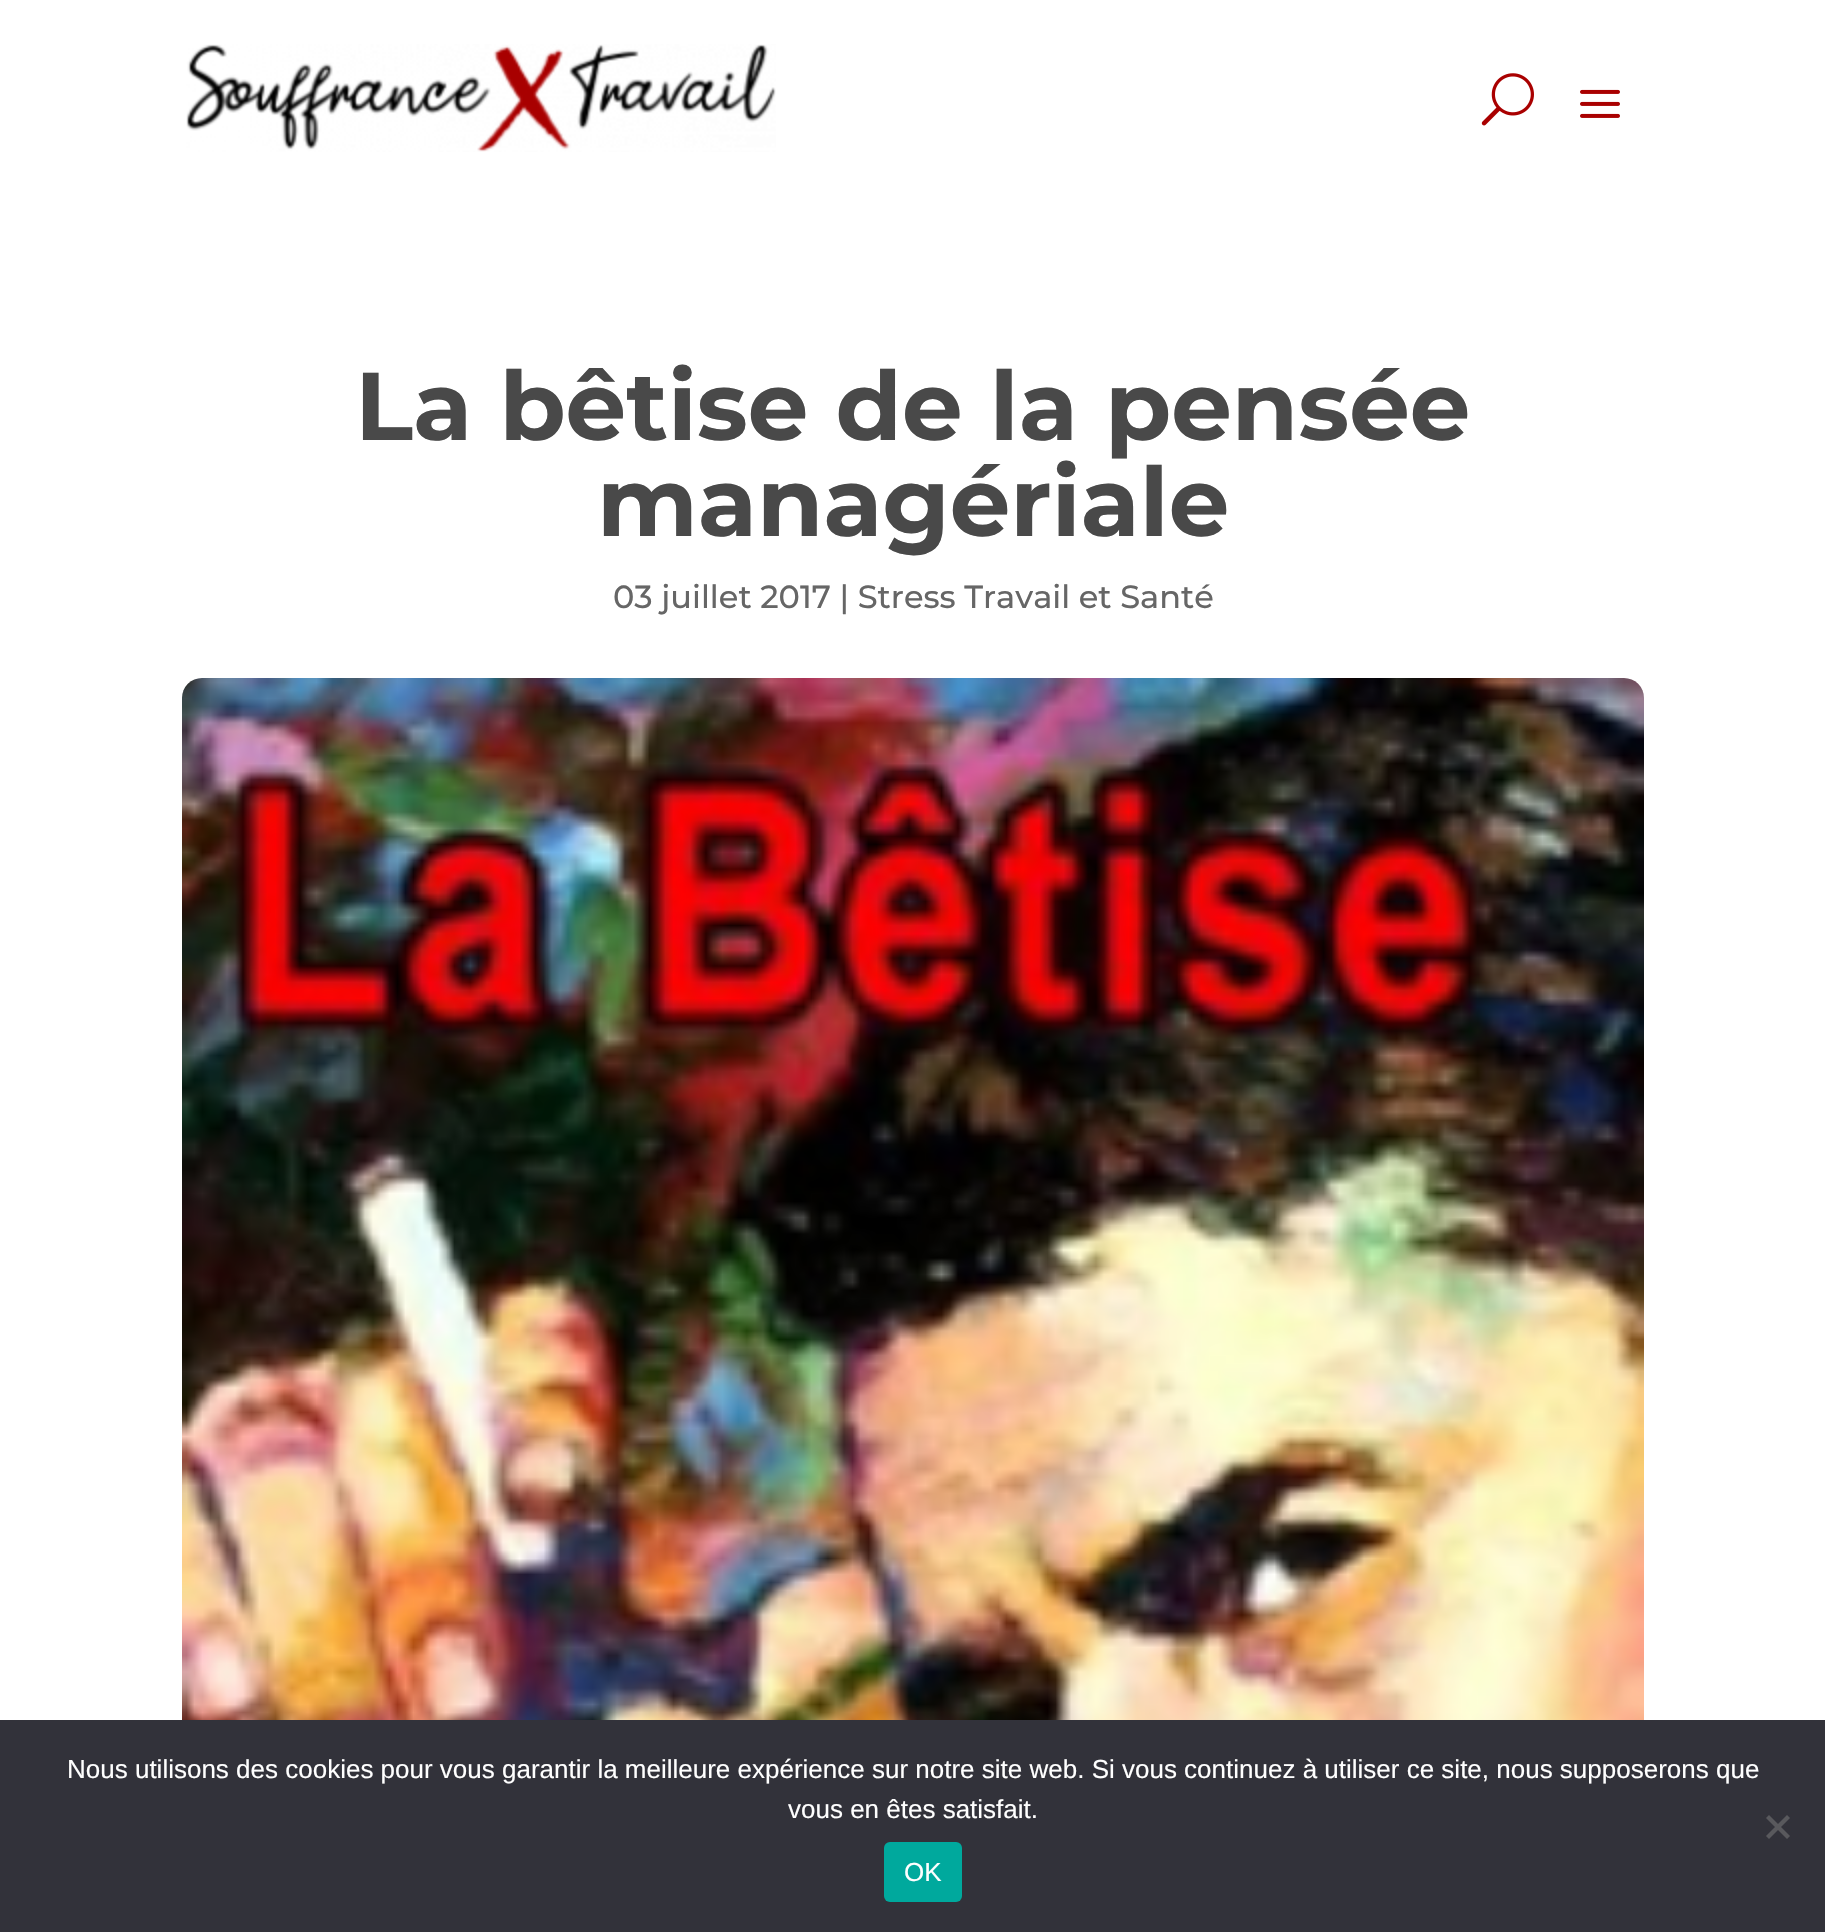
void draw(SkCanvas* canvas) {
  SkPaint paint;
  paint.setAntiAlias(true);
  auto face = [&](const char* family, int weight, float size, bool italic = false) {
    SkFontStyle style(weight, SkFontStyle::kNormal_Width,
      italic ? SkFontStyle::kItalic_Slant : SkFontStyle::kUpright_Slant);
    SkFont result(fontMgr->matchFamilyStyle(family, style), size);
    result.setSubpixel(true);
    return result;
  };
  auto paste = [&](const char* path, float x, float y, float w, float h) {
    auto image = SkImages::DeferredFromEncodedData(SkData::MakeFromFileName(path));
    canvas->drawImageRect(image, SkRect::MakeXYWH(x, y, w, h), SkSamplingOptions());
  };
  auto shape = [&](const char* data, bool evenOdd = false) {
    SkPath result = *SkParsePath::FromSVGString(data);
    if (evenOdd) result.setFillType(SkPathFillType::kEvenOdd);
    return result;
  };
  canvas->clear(0xffffffff);
  paste("img/1.png", 186, 44, 590, 108);
  paste("img/2.png", 1481, 73, 53, 53);
  paste("img/3.png", 1580, 89, 40, 29);
  paste("img/4.png", 182, 678, 1462, 1042);
  paint.setColor(0xff32323a);
  canvas->drawRect(SkRect::MakeXYWH(0, 1720, 1825, 212), paint);
  paint.setColor(0xff59595d);
  canvas->drawPath(shape("M1787 1815L1790 1818L1769 1839L1766 1836Z"), paint);
  canvas->drawPath(shape("M1766 1818L1769 1815L1790 1836L1787 1839Z"), paint);
  paint.setColor(0xff00a99d);
  canvas->drawRoundRect(SkRect::MakeXYWH(884, 1842, 78, 60), 6, 6, paint);
  auto f0 = face("Montserrat", 100, 96);
  paint.setColor(0xff494949);
  canvas->drawString("La bêtise de la pensée", 355, 440, f0, paint);
  canvas->drawString("managériale", 597, 536, f0, paint);
  auto f1 = face("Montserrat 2", 100, 32);
  paint.setColor(0xff666666);
  canvas->drawString("03 juillet 2017 | Stress Travail et Santé", 613, 608, f1, paint);
  auto f2 = face("Liberation Sans", 400, 26);
  paint.setColor(0xffffffff);
  {
    const struct { const char* s; float x, y; } items[] = {
      {"Nous utilisons des cookies pour vous garantir la meilleure expérience sur notre site web. Si vous continuez à utiliser ce site, nous supposerons que", 67, 1778},
      {"vous en êtes satisfait.", 788, 1818},
      {"OK", 904, 1881},
    };
    for (auto [s, x, y] : items) {
      canvas->drawString(s, x, y, f2, paint);
    }
  }
}
